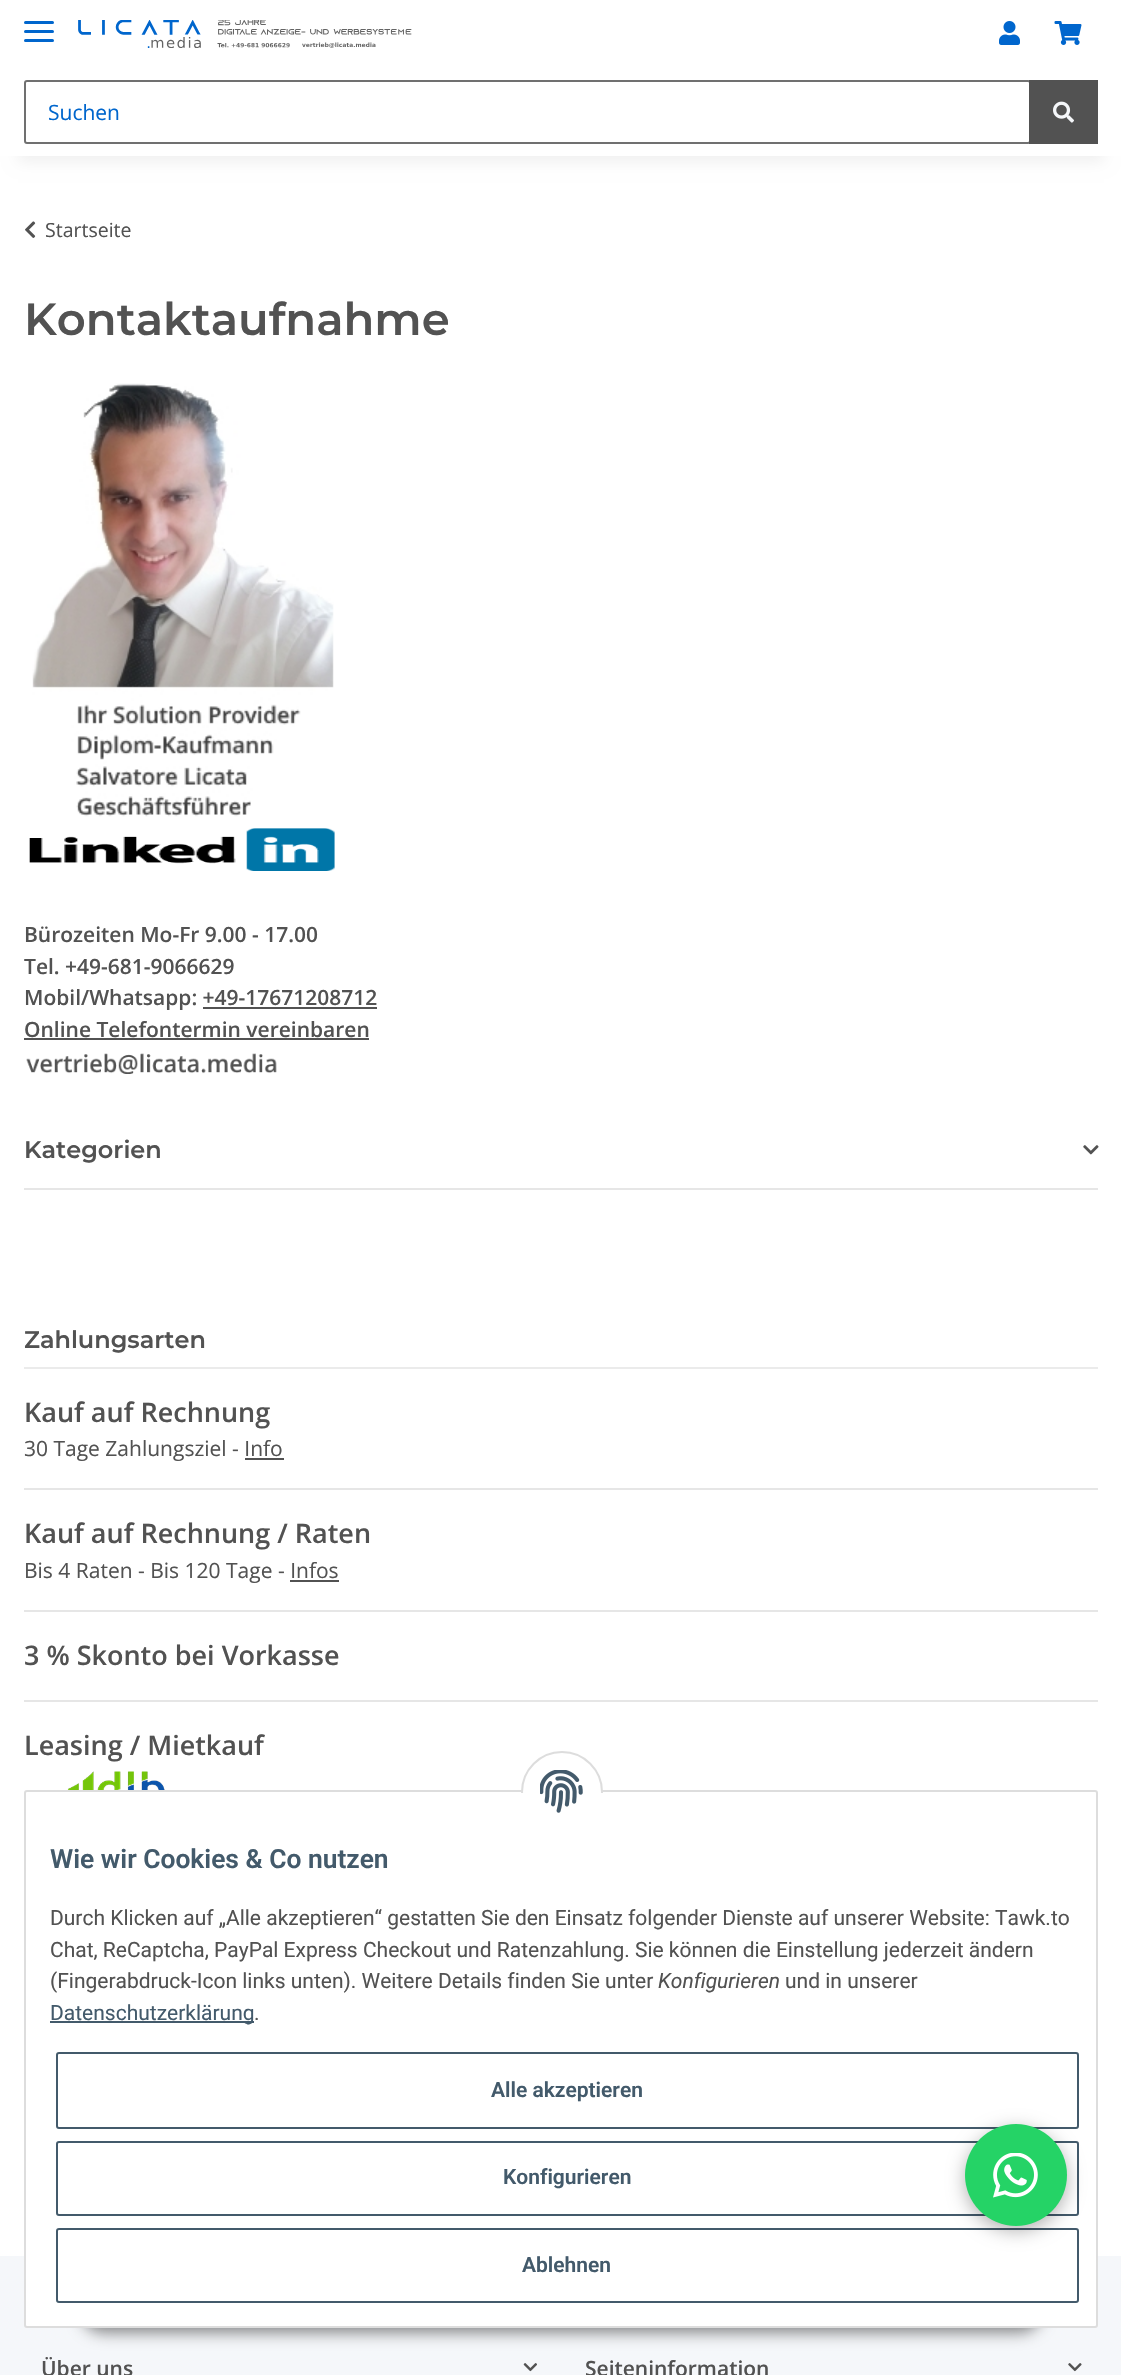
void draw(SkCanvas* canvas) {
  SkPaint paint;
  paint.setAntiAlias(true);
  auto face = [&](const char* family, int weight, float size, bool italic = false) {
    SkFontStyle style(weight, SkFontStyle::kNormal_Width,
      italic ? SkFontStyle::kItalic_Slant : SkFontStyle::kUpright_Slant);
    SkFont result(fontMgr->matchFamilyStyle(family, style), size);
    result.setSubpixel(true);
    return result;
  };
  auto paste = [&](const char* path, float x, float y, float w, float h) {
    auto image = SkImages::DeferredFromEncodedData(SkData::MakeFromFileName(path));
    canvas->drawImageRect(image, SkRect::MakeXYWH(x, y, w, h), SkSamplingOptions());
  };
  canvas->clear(0xfff5f7fa);
  paint.setColor(0xffffffff);
  canvas->drawRect(SkRect::MakeXYWH(0, 156, 1121, 2100), paint);
  paint.setColor(0x0f000000);
  paint.setMaskFilter(SkMaskFilter::MakeBlur(kNormal_SkBlurStyle, 7));
  canvas->drawRect(SkRect::MakeXYWH(18, 42, 1086, 120), paint);
  paint.setMaskFilter(nullptr);
  paint.setColor(0xffffffff);
  canvas->drawRect(SkRect::MakeXYWH(0, 0, 1121, 156), paint);
  paint.setColor(0xff0066cd);
  canvas->drawRoundRect(SkRect::MakeXYWH(24, 30, 30, 3), 1.5f, 1.5f, paint);
  canvas->drawRoundRect(SkRect::MakeXYWH(24, 21, 30, 3), 1.5f, 1.5f, paint);
  canvas->drawRoundRect(SkRect::MakeXYWH(24, 39, 30, 3), 1.5f, 1.5f, paint);
  paste("img/1.png", 78, 20, 334, 28);
  paste("img/2.png", 999, 21, 21, 24);
  paste("img/3.png", 1054, 21, 28, 24);
  paint.setStroke(true);
  paint.setStrokeWidth(2);
  paint.setColor(0xff707070);
  canvas->drawRoundRect(SkRect::MakeXYWH(25, 81, 1005, 62), 2, 2, paint);
  paint.setStroke(false);
  paint.setColor(0xff525252);
  canvas->drawRect(SkRect::MakeXYWH(1029, 80, 69, 64), paint);
  paste("img/4.png", 1053, 101, 21, 22);
  paste("img/5.png", 25, 221, 11, 17);
  paste("img/6.png", 32, 383, 302, 434);
  paste("img/7.png", 29, 828, 306, 43);
  canvas->drawRect(SkRect::MakeXYWH(203, 1007, 174, 2), paint);
  canvas->drawRect(SkRect::MakeXYWH(24, 1038, 345, 2), paint);
  paste("img/8.png", 26, 1053, 251, 21);
  paint.setColor(0x73000000);
  paint.setMaskFilter(SkMaskFilter::MakeBlur(kNormal_SkBlurStyle, 7.5f));
  canvas->drawRoundRect(SkRect::MakeXYWH(80, 2285, 963, 48), 24, 24, paint);
  paint.setMaskFilter(nullptr);
  paint.setColor(0xffffffff);
  canvas->drawRoundRect(SkRect::MakeXYWH(25, 1791, 1072, 536), 2, 2, paint);
  paint.setStroke(true);
  paint.setColor(0xffdddddd);
  canvas->drawRoundRect(SkRect::MakeXYWH(25, 1791, 1072, 536), 2, 2, paint);
  paint.setColor(0xff435a6b);
  canvas->drawRoundRect(SkRect::MakeXYWH(57, 2053, 1021, 75), 2, 2, paint);
  canvas->drawRoundRect(SkRect::MakeXYWH(57, 2142, 1021, 73), 2, 2, paint);
  canvas->drawRoundRect(SkRect::MakeXYWH(57, 2229, 1021, 73), 2, 2, paint);
  paint.setStroke(false);
  paint.setColor(0x4d000000);
  paint.setMaskFilter(SkMaskFilter::MakeBlur(kNormal_SkBlurStyle, 9));
  canvas->drawRoundRect(SkRect::MakeXYWH(965, 2129, 102, 102), 51, 51, paint);
  paint.setMaskFilter(nullptr);
  paint.setColor(0xff25d366);
  canvas->drawCircle(1016, 2175, 51, paint);
  paste("img/9.png", 993, 2153, 45, 45);
  paste("img/10.png", 1083, 1145, 16, 10);
  {
    const struct { float x, y, w, h; SkColor color; } items[] = {
      {24, 1188, 1074, 2, 0xffe6e6e6},
      {24, 1367, 1074, 2, 0xffebebeb},
      {245, 1458, 39, 2, 0xff525252},
      {24, 1488, 1074, 2, 0xffe6e6e6},
      {290, 1580, 49, 2, 0xff525252},
      {24, 1610, 1074, 2, 0xffe6e6e6},
      {24, 1700, 1074, 2, 0xffe6e6e6},
    };
    for (auto [x, y, w, h, color] : items) {
      paint.setColor(color);
      canvas->drawRect(SkRect::MakeXYWH(x, y, w, h), paint);
    }
  }
  paste("img/11.png", 67, 1771, 98, 19);
  paint.setColor(0xffffffff);
  canvas->drawCircle(562, 1792, 40, paint);
  paint.setStroke(true);
  paint.setColor(0xffdddddd);
  canvas->drawCircle(562, 1792, 40, paint);
  paint.setStroke(false);
  paint.setColor(0xffffffff);
  canvas->drawRect(SkRect::MakeXYWH(521, 1793, 82, 40), paint);
  paste("img/12.png", 540, 1770, 43, 43);
  paint.setColor(0xff435a6b);
  canvas->drawRect(SkRect::MakeXYWH(50, 2021, 204, 2), paint);
  paste("img/13.png", 523, 2363, 14, 9);
  paste("img/14.png", 1068, 2363, 14, 9);
  auto f0 = face("Open Sans", 400, 21);
  paint.setColor(0xff0066cd);
  canvas->drawString("Suchen", 48, 120, f0, paint);
  auto f1 = face("Open Sans", 400, 19.5f);
  paint.setColor(0xff525252);
  canvas->drawString("Startseite", 45, 237, f1, paint);
  auto f2 = face("Montserrat", 600, 45);
  canvas->drawString("Kontaktaufnahme", 24, 335, f2, paint);
  auto f3 = face("Open Sans", 600, 21);
  {
    const struct { const char* s; float x, y; } items[] = {
      {"Bürozeiten Mo-Fr 9.00 - 17.00", 24, 942},
      {"Tel. +49-681-9066629", 24, 974},
      {"Mobil/Whatsapp: +49-17671208712", 24, 1005},
      {"Online Telefontermin vereinbaren", 24, 1037},
    };
    for (auto [s, x, y] : items) {
      canvas->drawString(s, x, y, f3, paint);
    }
  }
  auto f4 = face("Montserrat", 600, 24);
  canvas->drawString("Kategorien", 24, 1158, f4, paint);
  canvas->drawString("Zahlungsarten", 24, 1348, f4, paint);
  auto f5 = face("Open Sans", 600, 27);
  canvas->drawString("Kauf auf Rechnung", 24, 1422, f5, paint);
  canvas->drawString("30 Tage Zahlungsziel - Info", 24, 1456, f0, paint);
  canvas->drawString("Kauf auf Rechnung / Raten", 24, 1543, f5, paint);
  canvas->drawString("Bis 4 Raten - Bis 120 Tage - Infos", 24, 1578, f0, paint);
  canvas->drawString("3 % Skonto bei Vorkasse", 24, 1665, f5, paint);
  canvas->drawString("Leasing / Mietkauf", 24, 1755, f5, paint);
  auto f6 = face("Roboto", 600, 26.4f);
  paint.setColor(0xff435a6b);
  canvas->drawString("Wie wir Cookies & Co nutzen", 50, 1868, f6, paint);
  auto f7 = face("Roboto", 400, 21);
  paint.setColor(0xff525252);
  {
    const struct { const char* s; float x, y; } items[] = {
      {"Durch Klicken auf „Alle akzeptieren“ gestatten Sie den Einsatz folgender Dienste auf unserer Website: Tawk.to", 50, 1925},
      {"Chat, ReCaptcha, PayPal Express Checkout und Ratenzahlung. Sie können die Einstellung jederzeit ändern", 50, 1957},
      {"(Fingerabdruck-Icon links unten). Weitere Details finden Sie unter", 50, 1988},
    };
    for (auto [s, x, y] : items) {
      canvas->drawString(s, x, y, f7, paint);
    }
  }
  auto f8 = face("Roboto", 400, 21, true);
  canvas->drawString("Konfigurieren", 658, 1988, f8, paint);
  canvas->drawString("und in unserer", 785, 1988, f7, paint);
  paint.setColor(0xff435a6b);
  canvas->drawString("Datenschutzerklärung", 50, 2020, f7, paint);
  paint.setColor(0xff525252);
  canvas->drawString(".", 254, 2020, f7, paint);
  auto f9 = face("Roboto", 600, 21);
  paint.setColor(0xff435a6b);
  {
    const struct { const char* s; float x, y; } items[] = {
      {"Alle akzeptieren", 491, 2097},
      {"Konfigurieren", 503, 2184},
      {"Ablehnen", 522, 2272},
    };
    for (auto [s, x, y] : items) {
      canvas->drawString(s, x, y, f9, paint);
    }
  }
  paint.setColor(0xff525252);
  canvas->drawString("Über uns", 41, 2376, f3, paint);
  canvas->drawString("Seiteninformation", 585, 2376, f3, paint);
}
